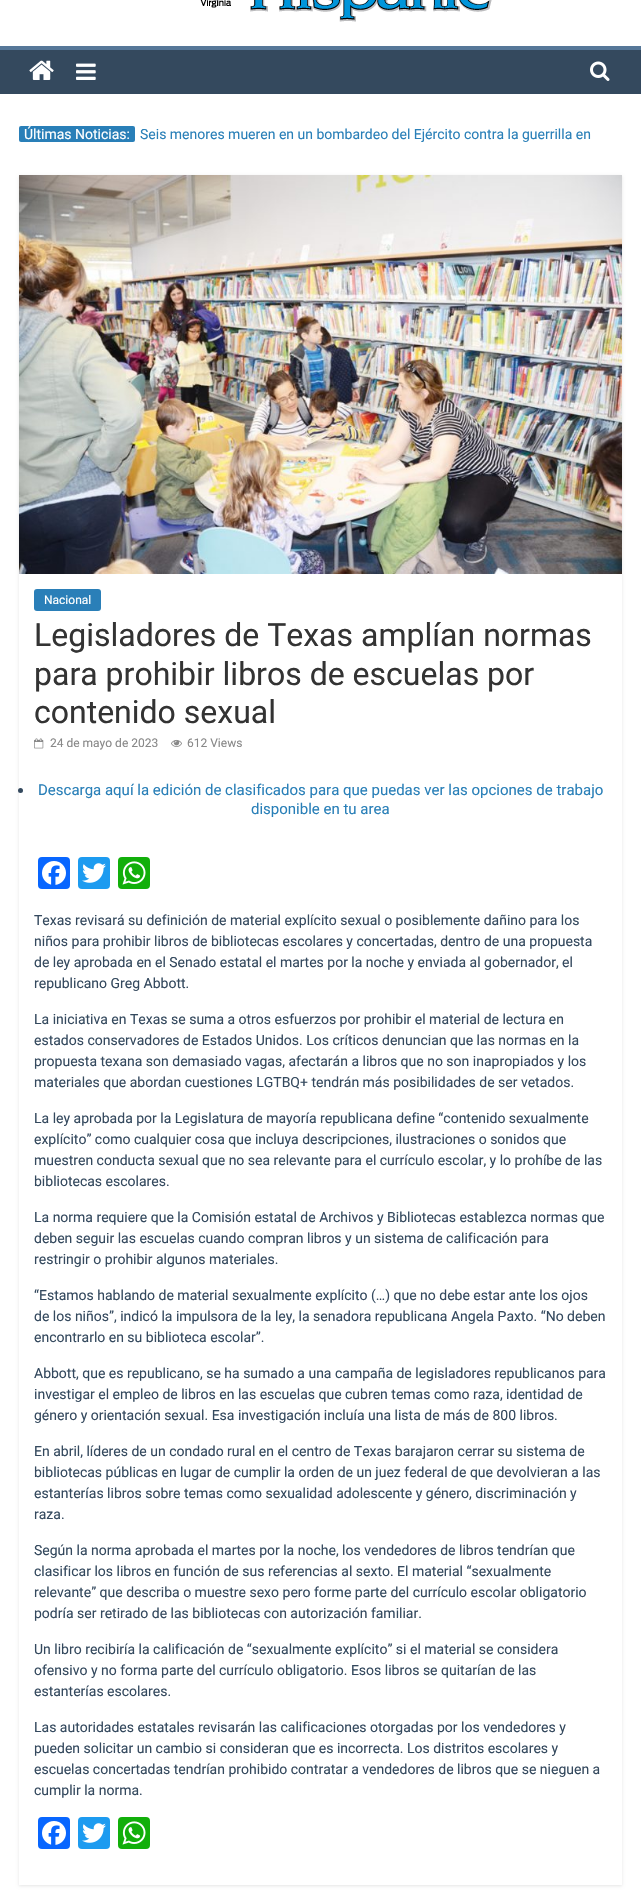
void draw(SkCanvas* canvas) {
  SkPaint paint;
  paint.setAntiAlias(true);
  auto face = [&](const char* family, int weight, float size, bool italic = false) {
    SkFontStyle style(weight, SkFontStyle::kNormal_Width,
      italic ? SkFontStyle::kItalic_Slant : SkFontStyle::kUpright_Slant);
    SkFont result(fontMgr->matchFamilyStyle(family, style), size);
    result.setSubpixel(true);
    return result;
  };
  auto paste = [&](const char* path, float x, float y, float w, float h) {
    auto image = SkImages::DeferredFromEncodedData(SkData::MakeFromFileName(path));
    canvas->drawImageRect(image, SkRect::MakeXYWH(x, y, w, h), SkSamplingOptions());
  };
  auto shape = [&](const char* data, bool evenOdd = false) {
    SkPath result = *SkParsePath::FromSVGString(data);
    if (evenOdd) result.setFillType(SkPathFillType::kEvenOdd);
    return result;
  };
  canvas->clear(0xffffffff);
  paste("img/1.png", 200, 0, 292, 22);
  paint.setColor(0xff34495e);
  canvas->drawRect(SkRect::MakeXYWH(0, 50, 641, 44), paint);
  paint.setColor(0xff567798);
  canvas->drawRect(SkRect::MakeXYWH(0, 46, 641, 4), paint);
  paste("img/2.png", 29, 60, 25, 20);
  paste("img/3.png", 76, 63, 20, 17);
  paste("img/4.png", 590, 61, 20, 20);
  paint.setColor(0xff297fb8);
  canvas->drawRoundRect(SkRect::MakeXYWH(19, 126, 116, 16), 2, 2, paint);
  canvas->save();
  canvas->clipPath(shape("M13 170H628V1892H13ZM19 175H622V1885H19Z", true), true);
  paint.setColor(0x1a000000);
  paint.setMaskFilter(SkMaskFilter::MakeBlur(kNormal_SkBlurStyle, 1.5f));
  canvas->drawRect(SkRect::MakeXYWH(19, 176, 603, 1710), paint);
  paint.setMaskFilter(nullptr);
  canvas->restore();
  paste("img/5.png", 19, 175, 603, 399);
  paint.setColor(0xff2a7fb8);
  canvas->drawRoundRect(SkRect::MakeXYWH(34, 589, 67, 22), 3, 3, paint);
  paste("img/6.png", 34, 738, 10, 11);
  paste("img/7.png", 171, 739, 11, 8);
  paint.setColor(0xff34495e);
  canvas->drawCircle(20.5f, 790.5f, 2.5f, paint);
  paint.setColor(0xff0866ff);
  canvas->drawRoundRect(SkRect::MakeXYWH(38, 857, 32, 32), 4, 4, paint);
  paste("img/8.png", 42, 861, 24, 24);
  paint.setColor(0xff1d9bf0);
  canvas->drawRoundRect(SkRect::MakeXYWH(78, 857, 32, 32), 4, 4, paint);
  paste("img/9.png", 82, 863, 24, 20);
  paint.setColor(0xff12af0a);
  canvas->drawRoundRect(SkRect::MakeXYWH(118, 857, 32, 32), 4, 4, paint);
  paste("img/10.png", 122, 861, 24, 24);
  paint.setColor(0xff0866ff);
  canvas->drawRoundRect(SkRect::MakeXYWH(38, 1817, 32, 32), 4, 4, paint);
  paste("img/8.png", 42, 1821, 24, 24);
  paint.setColor(0xff1d9bf0);
  canvas->drawRoundRect(SkRect::MakeXYWH(78, 1817, 32, 32), 4, 4, paint);
  paste("img/9.png", 82, 1823, 24, 20);
  paint.setColor(0xff12af0a);
  canvas->drawRoundRect(SkRect::MakeXYWH(118, 1817, 32, 32), 4, 4, paint);
  paste("img/10.png", 122, 1821, 24, 24);
  auto f0 = face("Roboto", 400, 14);
  paint.setColor(0xffffffff);
  canvas->drawString("Últimas Noticias:", 24, 139, f0, paint);
  paint.setColor(0xff297fb8);
  canvas->drawString("Seis menores mueren en un bombardeo del Ejército contra la guerrilla en", 140, 139, f0, paint);
  auto f1 = face("Roboto", 400, 12);
  paint.setColor(0xffffffff);
  canvas->drawString("Nacional", 44, 604, f1, paint);
  auto f2 = face("Roboto", 400, 32);
  paint.setColor(0xff333333);
  {
    const struct { const char* s; float x, y; } items[] = {
      {"Legisladores de Texas amplían normas", 34, 646},
      {"para prohibir libros de escuelas por", 34, 685},
      {"contenido sexual", 34, 723},
    };
    for (auto [s, x, y] : items) {
      canvas->drawString(s, x, y, f2, paint);
    }
  }
  paint.setColor(0xff888888);
  canvas->drawString("24 de mayo de 2023", 50, 747, f1, paint);
  canvas->drawString("612 Views", 187, 747, f1, paint);
  auto f3 = face("Roboto", 400, 15);
  paint.setColor(0xff297fb8);
  canvas->drawString("Descarga aquí la edición de clasificados para que puedas ver las opciones de trabajo", 38, 795, f3, paint);
  canvas->drawString("disponible en tu area", 251, 814, f3, paint);
  paint.setColor(0xff34495e);
  {
    const struct { const char* s; float x, y; } items[] = {
      {"Texas revisará su definición de material explícito sexual o posiblemente dañino para los", 34, 925},
      {"niños para prohibir libros de bibliotecas escolares y concertadas, dentro de una propuesta", 34, 946},
      {"de ley aprobada en el Senado estatal el martes por la noche y enviada al gobernador, el", 34, 967},
      {"republicano Greg Abbott.", 34, 988},
      {"La iniciativa en Texas se suma a otros esfuerzos por prohibir el material de lectura en", 34, 1024},
      {"estados conservadores de Estados Unidos. Los críticos denuncian que las normas en la", 34, 1045},
      {"propuesta texana son demasiado vagas, afectarán a libros que no son inapropiados y los", 34, 1066},
      {"materiales que abordan cuestiones LGTBQ+ tendrán más posibilidades de ser vetados.", 34, 1087},
      {"La ley aprobada por la Legislatura de mayoría republicana define “contenido sexualmente", 34, 1123},
      {"explícito” como cualquier cosa que incluya descripciones, ilustraciones o sonidos que", 34, 1144},
      {"muestren conducta sexual que no sea relevante para el currículo escolar, y lo prohíbe de las", 34, 1165},
      {"bibliotecas escolares.", 34, 1186},
      {"La norma requiere que la Comisión estatal de Archivos y Bibliotecas establezca normas que", 34, 1222},
      {"deben seguir las escuelas cuando compran libros y un sistema de calificación para", 34, 1243},
      {"restringir o prohibir algunos materiales.", 34, 1264},
      {"“Estamos hablando de material sexualmente explícito (…) que no debe estar ante los ojos", 34, 1300},
      {"de los niños”, indicó la impulsora de la ley, la senadora republicana Angela Paxto. “No deben", 34, 1321},
      {"encontrarlo en su biblioteca escolar”.", 34, 1342},
      {"Abbott, que es republicano, se ha sumado a una campaña de legisladores republicanos para", 34, 1378},
      {"investigar el empleo de libros en las escuelas que cubren temas como raza, identidad de", 34, 1399},
      {"género y orientación sexual. Esa investigación incluía una lista de más de 800 libros.", 34, 1420},
      {"En abril, líderes de un condado rural en el centro de Texas barajaron cerrar su sistema de", 34, 1456},
      {"bibliotecas públicas en lugar de cumplir la orden de un juez federal de que devolvieran a las", 34, 1477},
      {"estanterías libros sobre temas como sexualidad adolescente y género, discriminación y", 34, 1498},
      {"raza.", 34, 1519},
      {"Según la norma aprobada el martes por la noche, los vendedores de libros tendrían que", 34, 1555},
      {"clasificar los libros en función de sus referencias al sexto. El material “sexualmente", 34, 1576},
      {"relevante” que describa o muestre sexo pero forme parte del currículo escolar obligatorio", 34, 1597},
      {"podría ser retirado de las bibliotecas con autorización familiar.", 34, 1618},
      {"Un libro recibiría la calificación de “sexualmente explícito” si el material se considera", 34, 1654},
      {"ofensivo y no forma parte del currículo obligatorio. Esos libros se quitarían de las", 34, 1675},
      {"estanterías escolares.", 34, 1696},
      {"Las autoridades estatales revisarán las calificaciones otorgadas por los vendedores y", 34, 1732},
      {"pueden solicitar un cambio si consideran que es incorrecta. Los distritos escolares y", 34, 1753},
      {"escuelas concertadas tendrían prohibido contratar a vendedores de libros que se nieguen a", 34, 1774},
      {"cumplir la norma.", 34, 1795},
    };
    for (auto [s, x, y] : items) {
      canvas->drawString(s, x, y, f0, paint);
    }
  }
}
